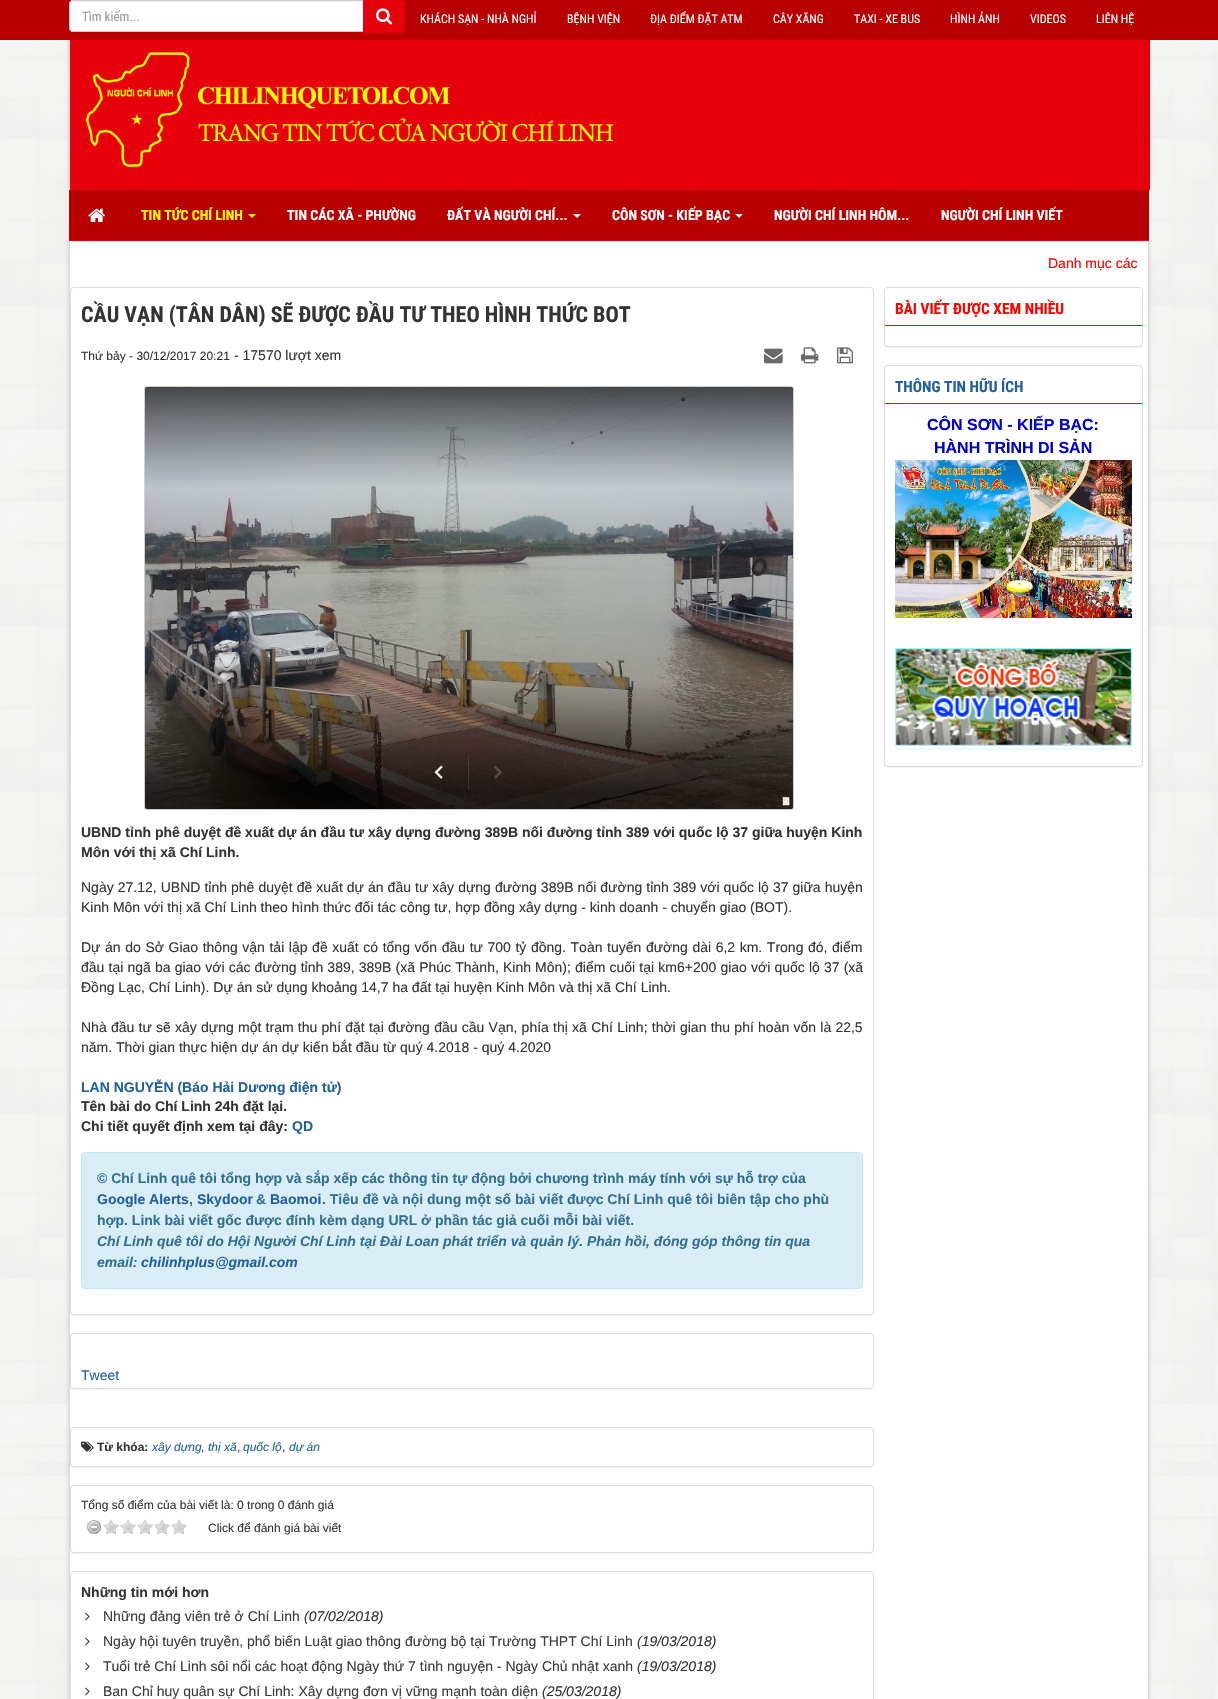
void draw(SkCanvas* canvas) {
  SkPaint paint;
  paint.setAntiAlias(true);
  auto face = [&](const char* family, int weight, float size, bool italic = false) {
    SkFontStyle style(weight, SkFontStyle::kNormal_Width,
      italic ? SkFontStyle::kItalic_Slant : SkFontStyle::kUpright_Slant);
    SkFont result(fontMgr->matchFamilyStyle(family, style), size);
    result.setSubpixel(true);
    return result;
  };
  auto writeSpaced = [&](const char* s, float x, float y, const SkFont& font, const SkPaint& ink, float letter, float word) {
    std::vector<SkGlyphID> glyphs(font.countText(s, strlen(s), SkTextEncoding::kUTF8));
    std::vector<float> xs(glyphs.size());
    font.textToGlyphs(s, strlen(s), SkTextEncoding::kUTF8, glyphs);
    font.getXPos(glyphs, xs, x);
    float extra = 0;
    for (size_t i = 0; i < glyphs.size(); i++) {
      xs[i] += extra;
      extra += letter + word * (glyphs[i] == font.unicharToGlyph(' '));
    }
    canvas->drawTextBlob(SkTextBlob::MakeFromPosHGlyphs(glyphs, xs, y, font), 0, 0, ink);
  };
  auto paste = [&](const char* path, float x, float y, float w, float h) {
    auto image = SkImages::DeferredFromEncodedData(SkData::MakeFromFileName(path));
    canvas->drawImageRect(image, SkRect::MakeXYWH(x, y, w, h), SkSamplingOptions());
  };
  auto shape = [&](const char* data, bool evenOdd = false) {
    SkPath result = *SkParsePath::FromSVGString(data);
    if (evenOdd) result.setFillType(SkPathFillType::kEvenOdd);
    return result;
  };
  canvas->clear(0xffffffff);
  paste("img/1.png", 0, 40, 1218, 1659);
  paint.setColor(0x26000000);
  paint.setMaskFilter(SkMaskFilter::MakeBlur(kNormal_SkBlurStyle, 2));
  canvas->drawRect(SkRect::MakeXYWH(69, 0, 1080, 190), paint);
  paint.setMaskFilter(nullptr);
  paint.setColor(0xffb80002);
  canvas->drawRect(SkRect::MakeXYWH(0, 0, 1218, 40), paint);
  paint.setColor(0xffffffff);
  canvas->drawPath(shape("M73 0H364V32H73C71 32 69 30 69 28V4C69 2 71 0 73 0Z"), paint);
  paint.setColor(0xffececec);
  canvas->drawPath(shape("M73 2H363V1H73C71 1 70 3 70 5C70 3 71 2 73 2Z"), paint);
  paint.setStroke(true);
  paint.setStrokeWidth(1);
  paint.setColor(0xffcccccc);
  canvas->drawPath(shape("M73 .5H363.5V31.5H73C71 31.5 69.5 30 69.5 28V4C69.5 2 71 .5 73 .5Z"), paint);
  paint.setStroke(false);
  paint.setColor(0xffe5000b);
  canvas->drawPath(shape("M363.5 .5H401C403 .5 404.5 2 404.5 4V29C404.5 31 403 32.5 401 32.5H363.5Z"), paint);
  paint.setStroke(true);
  canvas->drawPath(shape("M363.5 .5H401C403 .5 404.5 2 404.5 4V29C404.5 31 403 32.5 401 32.5H363.5Z"), paint);
  paste("img/2.png", 376, 8, 17, 17);
  paint.setStroke(false);
  paint.setColor(0xffdadada);
  canvas->drawRect(SkRect::MakeXYWH(69, 40, 1, 150), paint);
  paint.setColor(0xffe5000b);
  canvas->drawRect(SkRect::MakeXYWH(70, 40, 1080, 150), paint);
  paste("img/3.png", 85, 52, 529, 116);
  paint.setColor(0xffb70002);
  canvas->drawRect(SkRect::MakeXYWH(69, 190, 1080, 24), paint);
  paint.setColor(0x26000000);
  paint.setMaskFilter(SkMaskFilter::MakeBlur(kNormal_SkBlurStyle, 2));
  canvas->drawRect(SkRect::MakeXYWH(69, 241, 1080, 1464), paint);
  paint.setMaskFilter(nullptr);
  paste("img/4.png", 69, 214, 1080, 26);
  paint.setColor(0xffe5000b);
  canvas->drawRect(SkRect::MakeXYWH(69, 240, 1080, 1), paint);
  paste("img/5.png", 88, 208, 17, 14);
  paint.setColor(0xffffff00);
  canvas->drawPath(shape("M248 214H256L252 218Z"), paint);
  paint.setColor(0xffffffff);
  canvas->drawPath(shape("M573 214H581L577 218Z"), paint);
  canvas->drawPath(shape("M735 214H743L739 218Z"), paint);
  {
    const struct { float x, y, w, h; SkColor color; } items[] = {
      {70, 241, 1078, 1458, 0xffffffff},
      {1148, 241, 1, 1458, 0xffdadada},
      {69, 241, 1, 1383, 0xffdadada},
    };
    for (auto [x, y, w, h, color] : items) {
      paint.setColor(color);
      canvas->drawRect(SkRect::MakeXYWH(x, y, w, h), paint);
    }
  }
  paint.setColor(0x0d000000);
  paint.setMaskFilter(SkMaskFilter::MakeBlur(kNormal_SkBlurStyle, 0.5f));
  canvas->drawRoundRect(SkRect::MakeXYWH(70, 288, 804, 1028), 4, 4, paint);
  paint.setMaskFilter(nullptr);
  paint.setColor(0xffffffff);
  canvas->drawRoundRect(SkRect::MakeXYWH(70.5f, 287.5f, 803, 1027), 3.5f, 3.5f, paint);
  paint.setStroke(true);
  paint.setColor(0xffdddddd);
  canvas->drawRoundRect(SkRect::MakeXYWH(70.5f, 287.5f, 803, 1027), 3.5f, 3.5f, paint);
  paste("img/6.png", 764, 348, 19, 16);
  paste("img/7.png", 801, 347, 18, 17);
  paste("img/8.png", 837, 347, 16, 17);
  paint.setStroke(false);
  paint.setColor(0xffd0d0d0);
  canvas->drawRoundRect(SkRect::MakeXYWH(144, 386, 650, 424), 3, 3, paint);
  paste("img/9.png", 145, 387, 648, 422);
  paint.setColor(0xffd9edf7);
  canvas->drawRoundRect(SkRect::MakeXYWH(81.5f, 1152.5f, 781, 136), 3.5f, 3.5f, paint);
  paint.setStroke(true);
  paint.setColor(0xffbce8f1);
  canvas->drawRoundRect(SkRect::MakeXYWH(81.5f, 1152.5f, 781, 136), 3.5f, 3.5f, paint);
  paint.setStroke(false);
  paint.setColor(0x0d000000);
  paint.setMaskFilter(SkMaskFilter::MakeBlur(kNormal_SkBlurStyle, 0.5f));
  canvas->drawRoundRect(SkRect::MakeXYWH(70, 1334, 804, 56), 4, 4, paint);
  paint.setMaskFilter(nullptr);
  paint.setColor(0xffffffff);
  canvas->drawRoundRect(SkRect::MakeXYWH(70.5f, 1333.5f, 803, 55), 3.5f, 3.5f, paint);
  paint.setStroke(true);
  paint.setColor(0xffdddddd);
  canvas->drawRoundRect(SkRect::MakeXYWH(70.5f, 1333.5f, 803, 55), 3.5f, 3.5f, paint);
  paint.setStroke(false);
  paint.setColor(0x0d000000);
  paint.setMaskFilter(SkMaskFilter::MakeBlur(kNormal_SkBlurStyle, 0.5f));
  canvas->drawRoundRect(SkRect::MakeXYWH(70, 1428, 804, 40), 4, 4, paint);
  paint.setMaskFilter(nullptr);
  paint.setColor(0xffffffff);
  canvas->drawRoundRect(SkRect::MakeXYWH(70.5f, 1427.5f, 803, 39), 3.5f, 3.5f, paint);
  paint.setStroke(true);
  paint.setColor(0xffdddddd);
  canvas->drawRoundRect(SkRect::MakeXYWH(70.5f, 1427.5f, 803, 39), 3.5f, 3.5f, paint);
  paste("img/10.png", 81, 1441, 13, 11);
  paint.setStroke(false);
  paint.setColor(0x0d000000);
  paint.setMaskFilter(SkMaskFilter::MakeBlur(kNormal_SkBlurStyle, 0.5f));
  canvas->drawRoundRect(SkRect::MakeXYWH(70, 1486, 804, 68), 4, 4, paint);
  paint.setMaskFilter(nullptr);
  paint.setColor(0xffffffff);
  canvas->drawRoundRect(SkRect::MakeXYWH(70.5f, 1485.5f, 803, 67), 3.5f, 3.5f, paint);
  paint.setStroke(true);
  paint.setColor(0xffdddddd);
  canvas->drawRoundRect(SkRect::MakeXYWH(70.5f, 1485.5f, 803, 67), 3.5f, 3.5f, paint);
  paste("img/11.png", 87, 1520, 14, 14);
  paste("img/12.png", 103, 1519, 16, 15);
  paste("img/12.png", 120, 1519, 16, 15);
  paste("img/12.png", 137, 1519, 16, 15);
  paste("img/12.png", 154, 1519, 16, 15);
  paste("img/12.png", 171, 1519, 16, 15);
  canvas->drawRoundRect(SkRect::MakeXYWH(70.5f, 1571.5f, 803, 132), 3.5f, 3.5f, paint);
  paste("img/13.png", 85, 1612, 5, 9);
  paste("img/13.png", 85, 1637, 5, 9);
  paste("img/13.png", 85, 1662, 5, 9);
  paste("img/13.png", 85, 1687, 5, 9);
  paint.setStroke(false);
  paint.setColor(0x0d000000);
  paint.setMaskFilter(SkMaskFilter::MakeBlur(kNormal_SkBlurStyle, 0.5f));
  canvas->drawRoundRect(SkRect::MakeXYWH(884, 288, 259, 60), 4, 4, paint);
  paint.setMaskFilter(nullptr);
  paint.setColor(0xffffffff);
  canvas->drawRoundRect(SkRect::MakeXYWH(884.5f, 287.5f, 258, 59), 3.5f, 3.5f, paint);
  paint.setStroke(true);
  paint.setColor(0xffdddddd);
  canvas->drawRoundRect(SkRect::MakeXYWH(884.5f, 287.5f, 258, 59), 3.5f, 3.5f, paint);
  paint.setStroke(false);
  paint.setColor(0xffff0000);
  canvas->drawRect(SkRect::MakeXYWH(885, 325, 257, 1), paint);
  paint.setColor(0x0d000000);
  paint.setMaskFilter(SkMaskFilter::MakeBlur(kNormal_SkBlurStyle, 0.5f));
  canvas->drawRoundRect(SkRect::MakeXYWH(884, 366, 259, 402), 4, 4, paint);
  paint.setMaskFilter(nullptr);
  paint.setColor(0xffffffff);
  canvas->drawRoundRect(SkRect::MakeXYWH(884.5f, 365.5f, 258, 401), 3.5f, 3.5f, paint);
  paint.setStroke(true);
  paint.setColor(0xffdddddd);
  canvas->drawRoundRect(SkRect::MakeXYWH(884.5f, 365.5f, 258, 401), 3.5f, 3.5f, paint);
  paint.setStroke(false);
  paint.setColor(0xffff0000);
  canvas->drawRect(SkRect::MakeXYWH(885, 403, 257, 1), paint);
  paste("img/14.png", 895, 460, 237, 158);
  paste("img/15.png", 895, 648, 237, 98);
  auto f0 = face("Roboto Condensed", 400, 13);
  paint.setColor(0xff999999);
  canvas->drawString("Tìm kiếm...", 82, 21, f0, paint);
  auto f1 = face("Roboto Condensed", 400, 12);
  paint.setColor(0xffffffff);
  {
    const struct { const char* s; float x, y; } items[] = {
      {"KHÁCH SẠN - NHÀ NGHỈ", 420, 23},
      {"BỆNH VIỆN", 567, 23},
      {"ĐỊA ĐIỂM ĐẶT ATM", 650, 23},
      {"CÂY XĂNG", 773, 23},
      {"TAXI - XE BUS", 854, 23},
      {"HÌNH ẢNH", 950, 23},
      {"VIDEOS", 1030, 23},
      {"LIÊN HỆ", 1096, 23},
    };
    for (auto [s, x, y] : items) {
      canvas->drawString(s, x, y, f1, paint);
    }
  }
  auto f2 = face("Roboto Condensed", 700, 14);
  paint.setColor(0xffffff00);
  canvas->drawString("TIN TỨC CHÍ LINH", 141, 220, f2, paint);
  paint.setColor(0xffffffff);
  {
    const struct { const char* s; float x, y; } items[] = {
      {"TIN CÁC XÃ - PHƯỜNG", 287, 220},
      {"ĐẤT VÀ NGƯỜI CHÍ...", 447, 220},
      {"CÔN SƠN - KIẾP BẠC", 612, 220},
      {"NGƯỜI CHÍ LINH HÔM...", 774, 220},
      {"NGƯỜI CHÍ LINH VIẾT", 941, 220},
    };
    for (auto [s, x, y] : items) {
      canvas->drawString(s, x, y, f2, paint);
    }
  }
  auto f3 = face("Liberation Sans", 400, 14);
  paint.setColor(0xffff0000);
  canvas->drawString("Danh mục các", 1048, 268, f3, paint);
  auto f4 = face("Roboto Condensed", 700, 22);
  paint.setColor(0xff333333);
  canvas->drawString("CẦU VẠN (TÂN DÂN) SẼ ĐƯỢC ĐẦU TƯ THEO HÌNH THỨC BOT", 81, 322, f4, paint);
  auto f5 = face("Liberation Sans", 400, 12);
  canvas->drawString("Thứ bảy - 30/12/2017 20:21", 81, 360, f5, paint);
  canvas->drawString("- 17570 lượt xem", 234, 360, f3, paint);
  auto f6 = face("Liberation Sans", 700, 14);
  canvas->drawString("UBND tỉnh phê duyệt đề xuất dự án đầu tư xây dựng đường 389B nối đường tỉnh 389 với quốc lộ 37 giữa huyện Kinh", 81, 837, f6, paint);
  canvas->drawString("Môn với thị xã Chí Linh.", 81, 857, f6, paint);
  writeSpaced("Ngày 27.12, UBND tỉnh phê duyệt đề xuất dự án đầu tư xây dựng đường 389B nối đường tỉnh 389 với quốc lộ 37 giữa huyện", 81, 892, f3, paint, 0, 0.15f);
  canvas->drawString("Kinh Môn với thị xã Chí Linh theo hình thức đối tác công tư, hợp đồng xây dựng - kinh doanh - chuyển giao (BOT).", 81, 912, f3, paint);
  writeSpaced("Dự án do Sở Giao thông vận tải lập đề xuất có tổng vốn đầu tư 700 tỷ đồng. Toàn tuyến đường dài 6,2 km. Trong đó, điểm", 81, 952, f3, paint, 0, 0.7f);
  writeSpaced("đầu tại ngã ba giao với các đường tỉnh 389, 389B (xã Phúc Thành, Kinh Môn); điểm cuối tại km6+200 giao với quốc lộ 37 (xã", 81, 972, f3, paint, 0, 0.25f);
  canvas->drawString("Đồng Lạc, Chí Linh). Dự án sử dụng khoảng 14,7 ha đất tại huyện Kinh Môn và thị xã Chí Linh.", 81, 992, f3, paint);
  writeSpaced("Nhà đầu tư sẽ xây dựng một trạm thu phí đặt tại đường đầu cầu Vạn, phía thị xã Chí Linh; thời gian thu phí hoàn vốn là 22,5", 81, 1032, f3, paint, 0, 0.35f);
  canvas->drawString("năm. Thời gian thực hiện dự án dự kiến bắt đầu từ quý 4.2018 - quý 4.2020", 81, 1052, f3, paint);
  paint.setColor(0xff205fa0);
  canvas->drawString("LAN NGUYỄN (Báo Hải Dương điện tử)", 81, 1092, f6, paint);
  paint.setColor(0xff333333);
  canvas->drawString("Tên bài do Chí Linh 24h đặt lại.", 81, 1111, f6, paint);
  canvas->drawString("Chi tiết quyết định xem tại đây:", 81, 1131, f6, paint);
  paint.setColor(0xff205fa0);
  canvas->drawString("QD", 292, 1131, f6, paint);
  paint.setColor(0xff31708f);
  canvas->drawString("© Chí Linh quê tôi tổng hợp và sắp xếp các thông tin tự động bởi chương trình máy tính với sự hỗ trợ của", 97, 1183, f6, paint);
  paint.setColor(0xff205fa0);
  canvas->drawString("Google Alerts", 97, 1204, f6, paint);
  paint.setColor(0xff31708f);
  canvas->drawString(",", 189, 1204, f6, paint);
  paint.setColor(0xff205fa0);
  canvas->drawString("Skydoor", 197, 1204, f6, paint);
  paint.setColor(0xff31708f);
  canvas->drawString("&", 256, 1204, f6, paint);
  paint.setColor(0xff205fa0);
  canvas->drawString("Baomoi", 270, 1204, f6, paint);
  paint.setColor(0xff31708f);
  canvas->drawString(". Tiêu đề và nội dung một số bài viết được Chí Linh quê tôi biên tập cho phù", 322, 1204, f6, paint);
  canvas->drawString("hợp. Link bài viết gốc được đính kèm dạng URL ở phần tác giả cuối mỗi bài viết.", 97, 1225, f6, paint);
  auto f7 = face("Liberation Sans", 700, 14, true);
  canvas->drawString("Chí Linh quê tôi do Hội Người Chí Linh tại Đài Loan phát triển và quản lý. Phản hồi, đóng góp thông tin qua", 97, 1246, f7, paint);
  canvas->drawString("email:", 97, 1267, f7, paint);
  paint.setColor(0xff205fa0);
  canvas->drawString("chilinhplus@gmail.com", 141, 1267, f7, paint);
  canvas->drawString("Tweet", 81, 1380, f3, paint);
  auto f8 = face("Liberation Sans", 700, 12);
  paint.setColor(0xff333333);
  canvas->drawString("Từ khóa:", 97, 1451, f8, paint);
  auto f9 = face("Liberation Sans", 400, 12, true);
  paint.setColor(0xff205fa0);
  canvas->drawString("xây dựng", 152, 1451, f9, paint);
  paint.setColor(0xff333333);
  canvas->drawString(",", 201, 1451, f5, paint);
  paint.setColor(0xff205fa0);
  canvas->drawString("thị xã", 208, 1451, f9, paint);
  paint.setColor(0xff333333);
  canvas->drawString(",", 237, 1451, f5, paint);
  paint.setColor(0xff205fa0);
  canvas->drawString("quốc lộ", 243, 1451, f9, paint);
  paint.setColor(0xff333333);
  canvas->drawString(",", 282, 1451, f5, paint);
  paint.setColor(0xff205fa0);
  canvas->drawString("dự án", 289, 1451, f9, paint);
  paint.setColor(0xff333333);
  canvas->drawString("Tổng số điểm của bài viết là: 0 trong 0 đánh giá", 81, 1509, f5, paint);
  canvas->drawString("Click để đánh giá bài viết", 208, 1532, f5, paint);
  canvas->drawString("Những tin mới hơn", 81, 1597, f6, paint);
  paint.setColor(0xff3b3b3b);
  canvas->drawString("Những đảng viên trẻ ở Chí Linh", 103, 1621, f3, paint);
  auto f10 = face("Liberation Sans", 400, 14, true);
  paint.setColor(0xff333333);
  canvas->drawString("(07/02/2018)", 304, 1621, f10, paint);
  paint.setColor(0xff3b3b3b);
  canvas->drawString("Ngày hội tuyên truyền, phổ biến Luật giao thông đường bộ tại Trường THPT Chí Linh", 103, 1646, f3, paint);
  paint.setColor(0xff333333);
  canvas->drawString("(19/03/2018)", 637, 1646, f10, paint);
  paint.setColor(0xff3b3b3b);
  canvas->drawString("Tuổi trẻ Chí Linh sôi nổi các hoạt động Ngày thứ 7 tình nguyện - Ngày Chủ nhật xanh", 103, 1671, f3, paint);
  paint.setColor(0xff333333);
  canvas->drawString("(19/03/2018)", 637, 1671, f10, paint);
  paint.setColor(0xff3b3b3b);
  canvas->drawString("Ban Chỉ huy quân sự Chí Linh: Xây dựng đơn vị vững mạnh toàn diện", 103, 1696, f3, paint);
  paint.setColor(0xff333333);
  canvas->drawString("(25/03/2018)", 542, 1696, f10, paint);
  auto f11 = face("Roboto Condensed", 700, 15.4f);
  paint.setColor(0xffff0000);
  canvas->drawString("BÀI VIẾT ĐƯỢC XEM NHIỀU", 895, 314, f11, paint);
  paint.setColor(0xff205fa0);
  canvas->drawString("THÔNG TIN HỮU ÍCH", 895, 392, f11, paint);
  auto f12 = face("Liberation Sans", 700, 16);
  paint.setColor(0xff0000cd);
  canvas->drawString("CÔN SƠN - KIẾP BẠC:", 927, 430, f12, paint);
  canvas->drawString("HÀNH TRÌNH DI SẢN", 934, 453, f12, paint);
}
